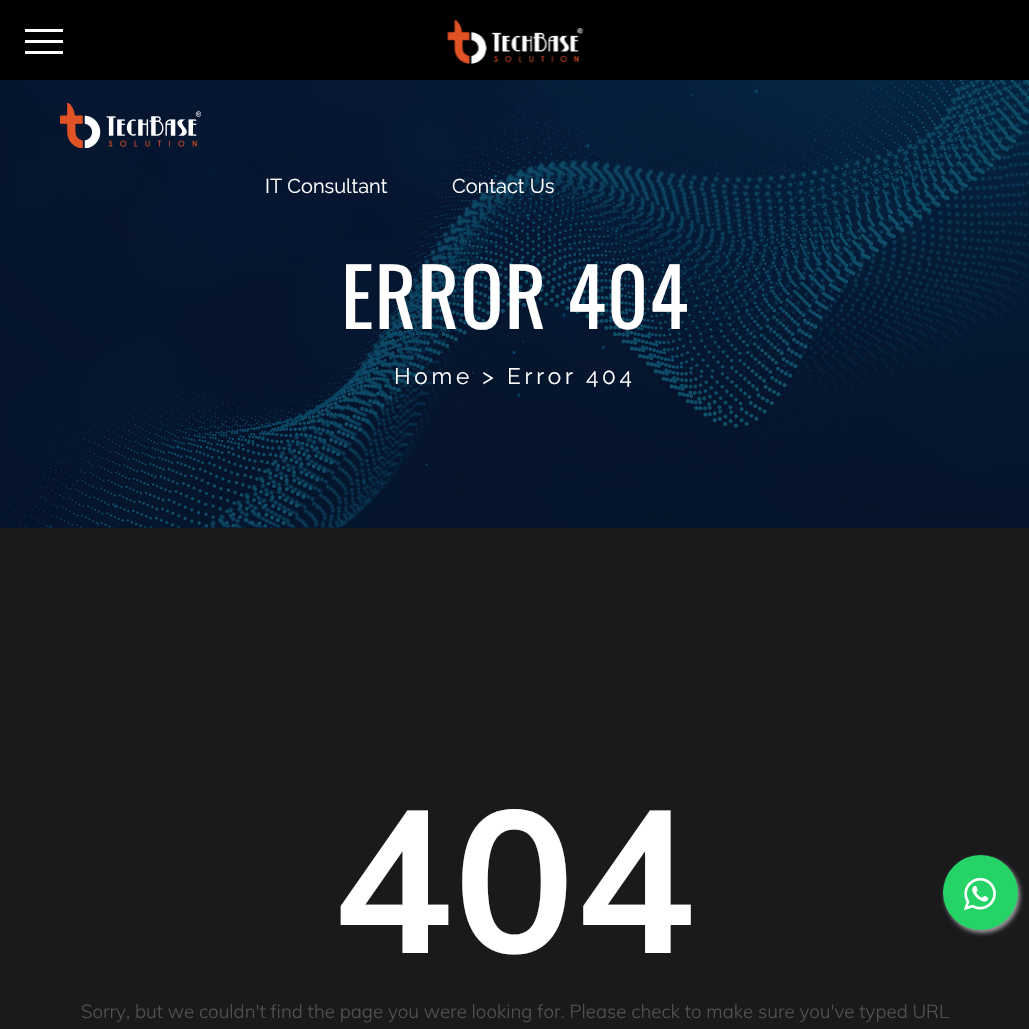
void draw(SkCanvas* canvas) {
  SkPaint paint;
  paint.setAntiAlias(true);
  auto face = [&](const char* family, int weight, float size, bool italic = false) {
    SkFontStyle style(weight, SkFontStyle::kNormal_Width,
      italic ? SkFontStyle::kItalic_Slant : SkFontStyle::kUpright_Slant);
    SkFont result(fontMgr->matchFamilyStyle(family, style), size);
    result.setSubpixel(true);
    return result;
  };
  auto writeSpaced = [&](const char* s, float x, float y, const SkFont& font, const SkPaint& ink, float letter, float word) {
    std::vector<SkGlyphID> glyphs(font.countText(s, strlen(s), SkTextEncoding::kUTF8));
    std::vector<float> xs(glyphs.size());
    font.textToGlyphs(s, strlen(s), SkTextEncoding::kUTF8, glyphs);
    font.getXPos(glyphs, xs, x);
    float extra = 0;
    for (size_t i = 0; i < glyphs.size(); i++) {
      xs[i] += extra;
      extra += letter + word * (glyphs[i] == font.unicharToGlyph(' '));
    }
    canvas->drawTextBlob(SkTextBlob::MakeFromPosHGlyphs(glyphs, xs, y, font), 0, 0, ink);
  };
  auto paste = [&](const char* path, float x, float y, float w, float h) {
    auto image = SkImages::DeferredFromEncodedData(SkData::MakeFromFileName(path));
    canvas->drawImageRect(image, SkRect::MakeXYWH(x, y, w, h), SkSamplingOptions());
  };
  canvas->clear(0xff1a1a1d);
  {
    const struct { float x, y, w, h; SkColor color; } items[] = {
      {0, 0, 1029, 80, 0xff000000},
      {25, 29, 38, 3, 0xffffffff},
      {25, 40, 38, 3, 0xffffffff},
      {25, 51, 38, 3, 0xffffffff},
    };
    for (auto [x, y, w, h, color] : items) {
      paint.setColor(color);
      canvas->drawRect(SkRect::MakeXYWH(x, y, w, h), paint);
    }
  }
  paste("img/1.png", 447, 20, 137, 44);
  paint.setColor(0xff05152c);
  canvas->drawRect(SkRect::MakeXYWH(0, 527, 1029, 1), paint);
  paste("img/3.png", 0, 80, 1029, 448);
  paste("img/2.png", 60, 103, 141, 45);
  paint.setColor(0xff999999);
  paint.setMaskFilter(SkMaskFilter::MakeBlur(kNormal_SkBlurStyle, 2));
  canvas->drawRoundRect(SkRect::MakeXYWH(945, 858, 75, 75), 37.5f, 37.5f, paint);
  paint.setMaskFilter(nullptr);
  paint.setColor(0xff25d366);
  canvas->drawCircle(980.5f, 892.5f, 37.5f, paint);
  paste("img/4.png", 963, 877, 33, 34);
  auto f0 = face("Raleway", 400, 20);
  paint.setColor(0xffffffff);
  canvas->drawString("IT Consultant", 265, 193, f0, paint);
  canvas->drawString("Contact Us", 452, 193, f0, paint);
  auto f1 = face("Oswald", 400, 80);
  writeSpaced("ERROR 404", 341, 329, f1, paint, 1.25f, 0);
  auto f2 = face("Raleway", 400, 22.5f);
  writeSpaced("Home > Error 404", 394, 384, f2, paint, 3.75f, 0);
  auto f3 = face("Muli", 700, 200);
  writeSpaced("404", 333, 953, f3, paint, 1.25f, 0);
  auto f4 = face("Muli", 300, 18.75f);
  paint.setColor(0xff525252);
  canvas->drawString("Sorry, but we couldn't find the page you were looking for. Please check to make sure you've typed URL", 81, 1018, f4, paint);
}
